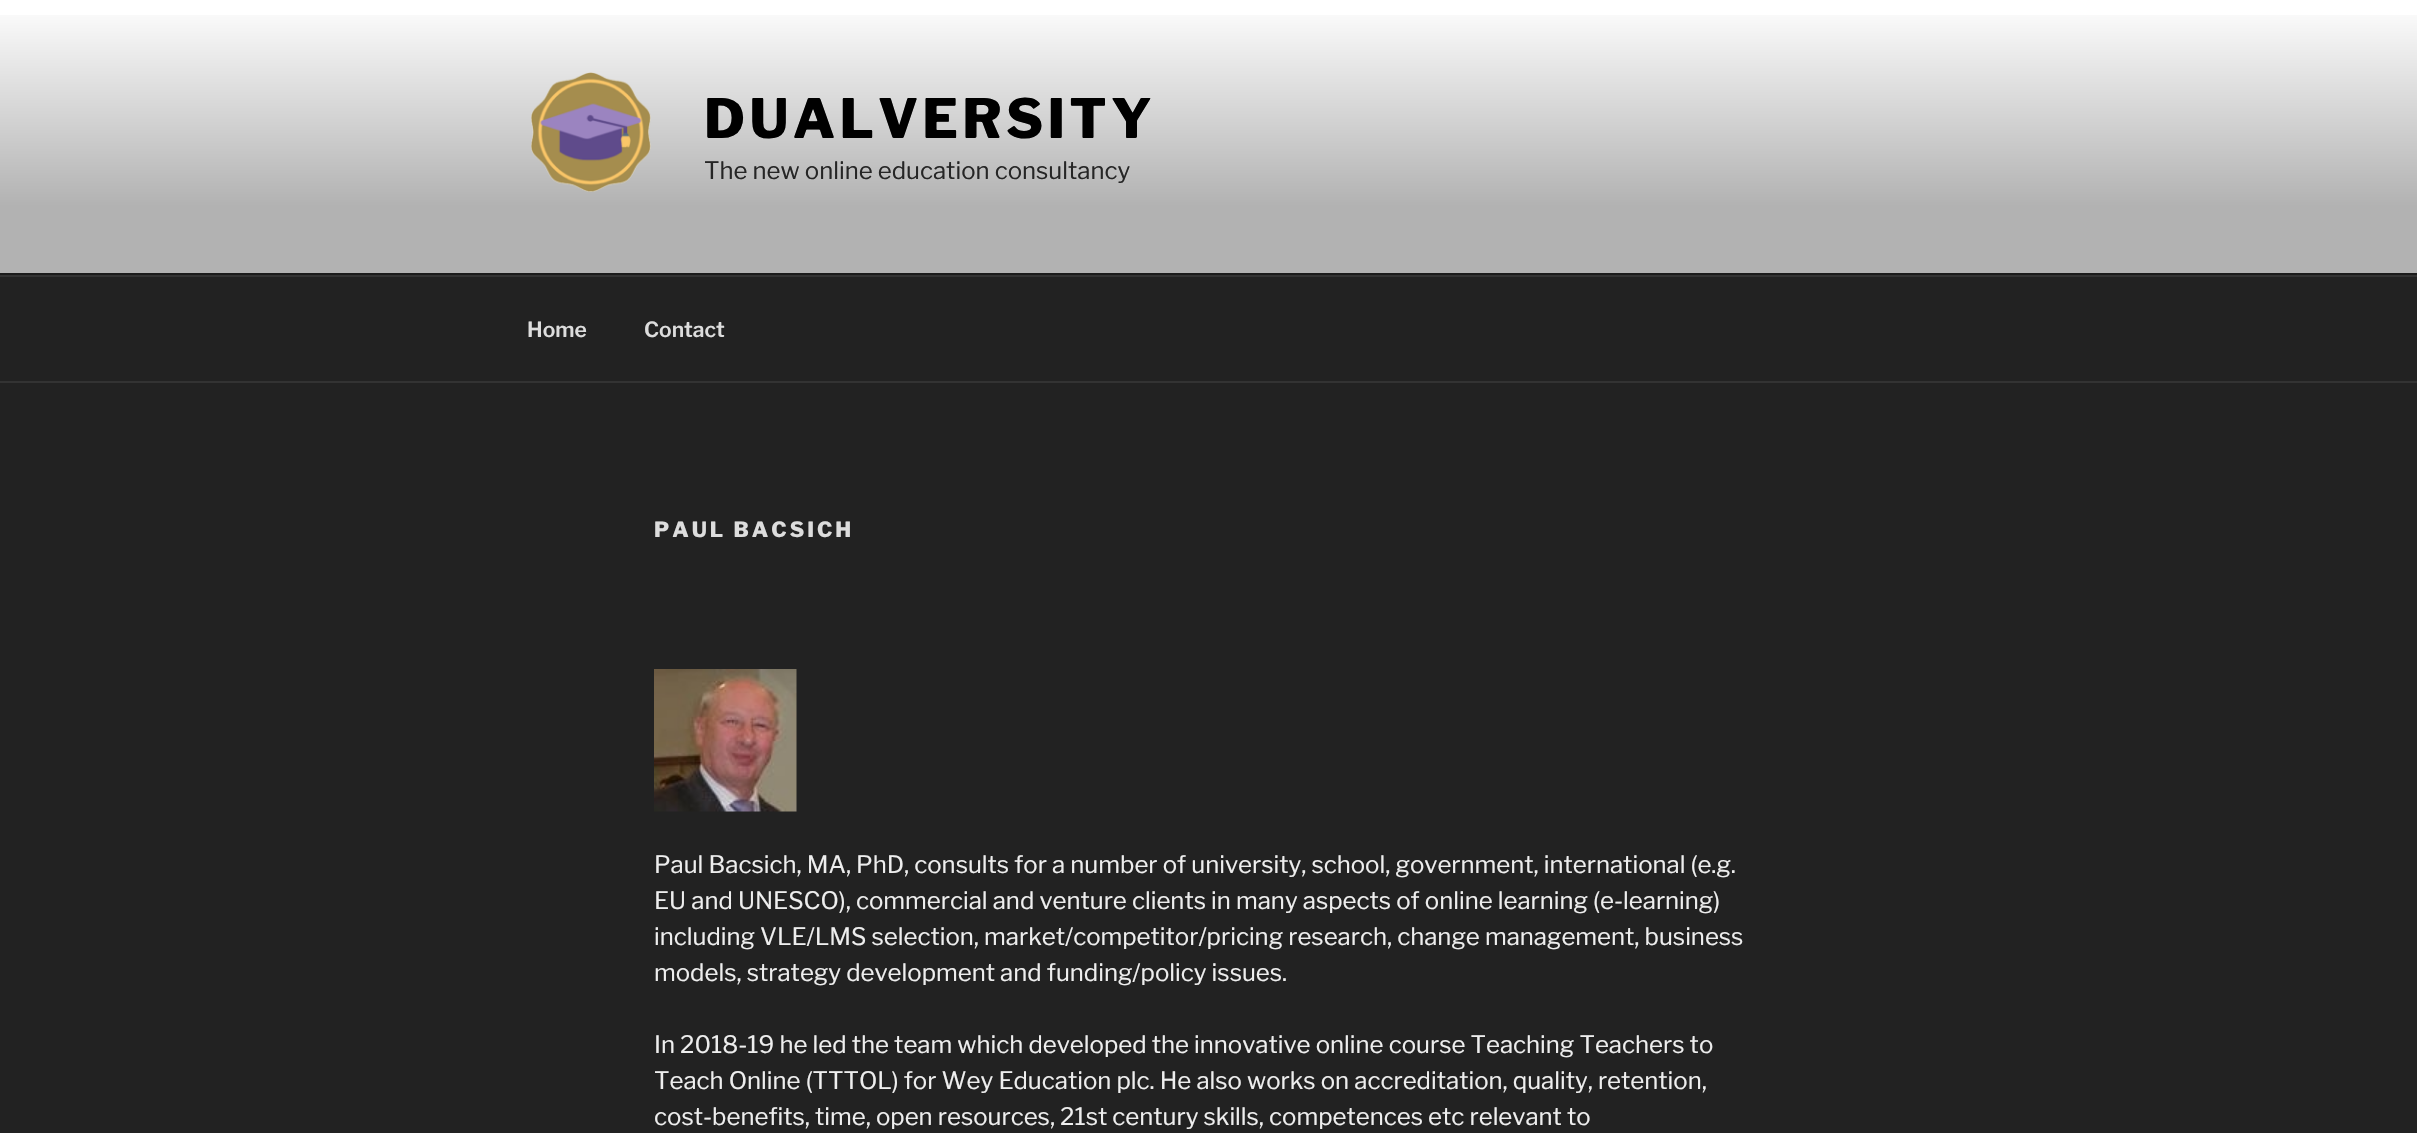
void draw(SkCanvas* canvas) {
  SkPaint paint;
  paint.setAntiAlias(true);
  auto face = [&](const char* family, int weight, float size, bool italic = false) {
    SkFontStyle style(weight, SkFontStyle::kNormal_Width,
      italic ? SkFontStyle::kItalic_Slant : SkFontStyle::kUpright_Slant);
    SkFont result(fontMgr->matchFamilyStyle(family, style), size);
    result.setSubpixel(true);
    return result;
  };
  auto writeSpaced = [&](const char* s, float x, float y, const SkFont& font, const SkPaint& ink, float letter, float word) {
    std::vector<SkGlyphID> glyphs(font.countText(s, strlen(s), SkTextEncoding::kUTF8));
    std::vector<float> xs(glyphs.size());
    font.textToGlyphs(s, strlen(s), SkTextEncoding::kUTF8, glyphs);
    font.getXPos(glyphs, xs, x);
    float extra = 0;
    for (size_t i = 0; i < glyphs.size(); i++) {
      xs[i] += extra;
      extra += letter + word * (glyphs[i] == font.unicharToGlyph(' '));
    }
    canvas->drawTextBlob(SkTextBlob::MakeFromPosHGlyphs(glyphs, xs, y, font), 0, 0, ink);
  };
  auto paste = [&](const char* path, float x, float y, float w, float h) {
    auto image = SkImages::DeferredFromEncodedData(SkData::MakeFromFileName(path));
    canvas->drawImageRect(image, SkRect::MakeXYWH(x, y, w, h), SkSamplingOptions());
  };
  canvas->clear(0xff222222);
  paint.setColor(0xff262626);
  canvas->drawRect(SkRect::MakeXYWH(0, 273, 2417, 2), paint);
  paint.setColor(0xffffffff);
  canvas->drawRect(SkRect::MakeXYWH(0, 0, 2417, 273), paint);
  {
    const SkColor colors[] = {0x00000000, 0x4d000000, 0x4d000000};
    const float stops[] = {0, 0.75f, 1};
    const SkPoint ends[] = {{1209, 0}, {1209, 275}};
    paint.setShader(SkGradientShader::MakeLinear(ends, colors, stops, 3, SkTileMode::kClamp));
    paint.setAlpha(255);
  }
  canvas->drawRect(SkRect::MakeXYWH(0, 15, 2417, 260), paint);
  paste("img/1.png", 531, 72, 120, 120);
  paint.setShader(nullptr);
  paint.setColor(0xff333333);
  canvas->drawRect(SkRect::MakeXYWH(0, 275, 2417, 2), paint);
  canvas->drawRect(SkRect::MakeXYWH(0, 381, 2417, 2), paint);
  paste("img/2.png", 654, 669, 143, 143);
  auto f0 = face("Libre Franklin", 100, 54);
  paint.setColor(0xff000000);
  writeSpaced("DUALVERSITY", 704, 138, f0, paint, 4.25f, 0);
  auto f1 = face("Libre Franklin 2", 100, 24);
  paint.setColor(0xff262626);
  canvas->drawString("The new online education consultancy", 704, 179, f1, paint);
  auto f2 = face("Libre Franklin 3", 100, 21);
  paint.setColor(0xffdddddd);
  canvas->drawString("Home", 527, 337, f2, paint);
  canvas->drawString("Contact", 644, 337, f2, paint);
  auto f3 = face("Libre Franklin", 100, 21);
  writeSpaced("PAUL BACSICH", 654, 537, f3, paint, 3, 0);
  paint.setColor(0xffeeeeee);
  {
    const struct { const char* s; float x, y; } items[] = {
      {"Paul Bacsich, MA, PhD, consults for a number of university, school, government, international (e.g.", 654, 873},
      {"EU and UNESCO), commercial and venture clients in many aspects of online learning (e-learning)", 654, 909},
      {"including VLE/LMS selection, market/competitor/pricing research, change management, business", 654, 945},
      {"models, strategy development and funding/policy issues.", 654, 981},
      {"In 2018-19 he led the team which developed the innovative online course Teaching Teachers to", 654, 1053},
      {"Teach Online (TTTOL) for Wey Education plc. He also works on accreditation, quality, retention,", 654, 1089},
      {"cost-benefits, time, open resources, 21st century skills, competences etc relevant to", 654, 1125},
    };
    for (auto [s, x, y] : items) {
      canvas->drawString(s, x, y, f1, paint);
    }
  }
}
